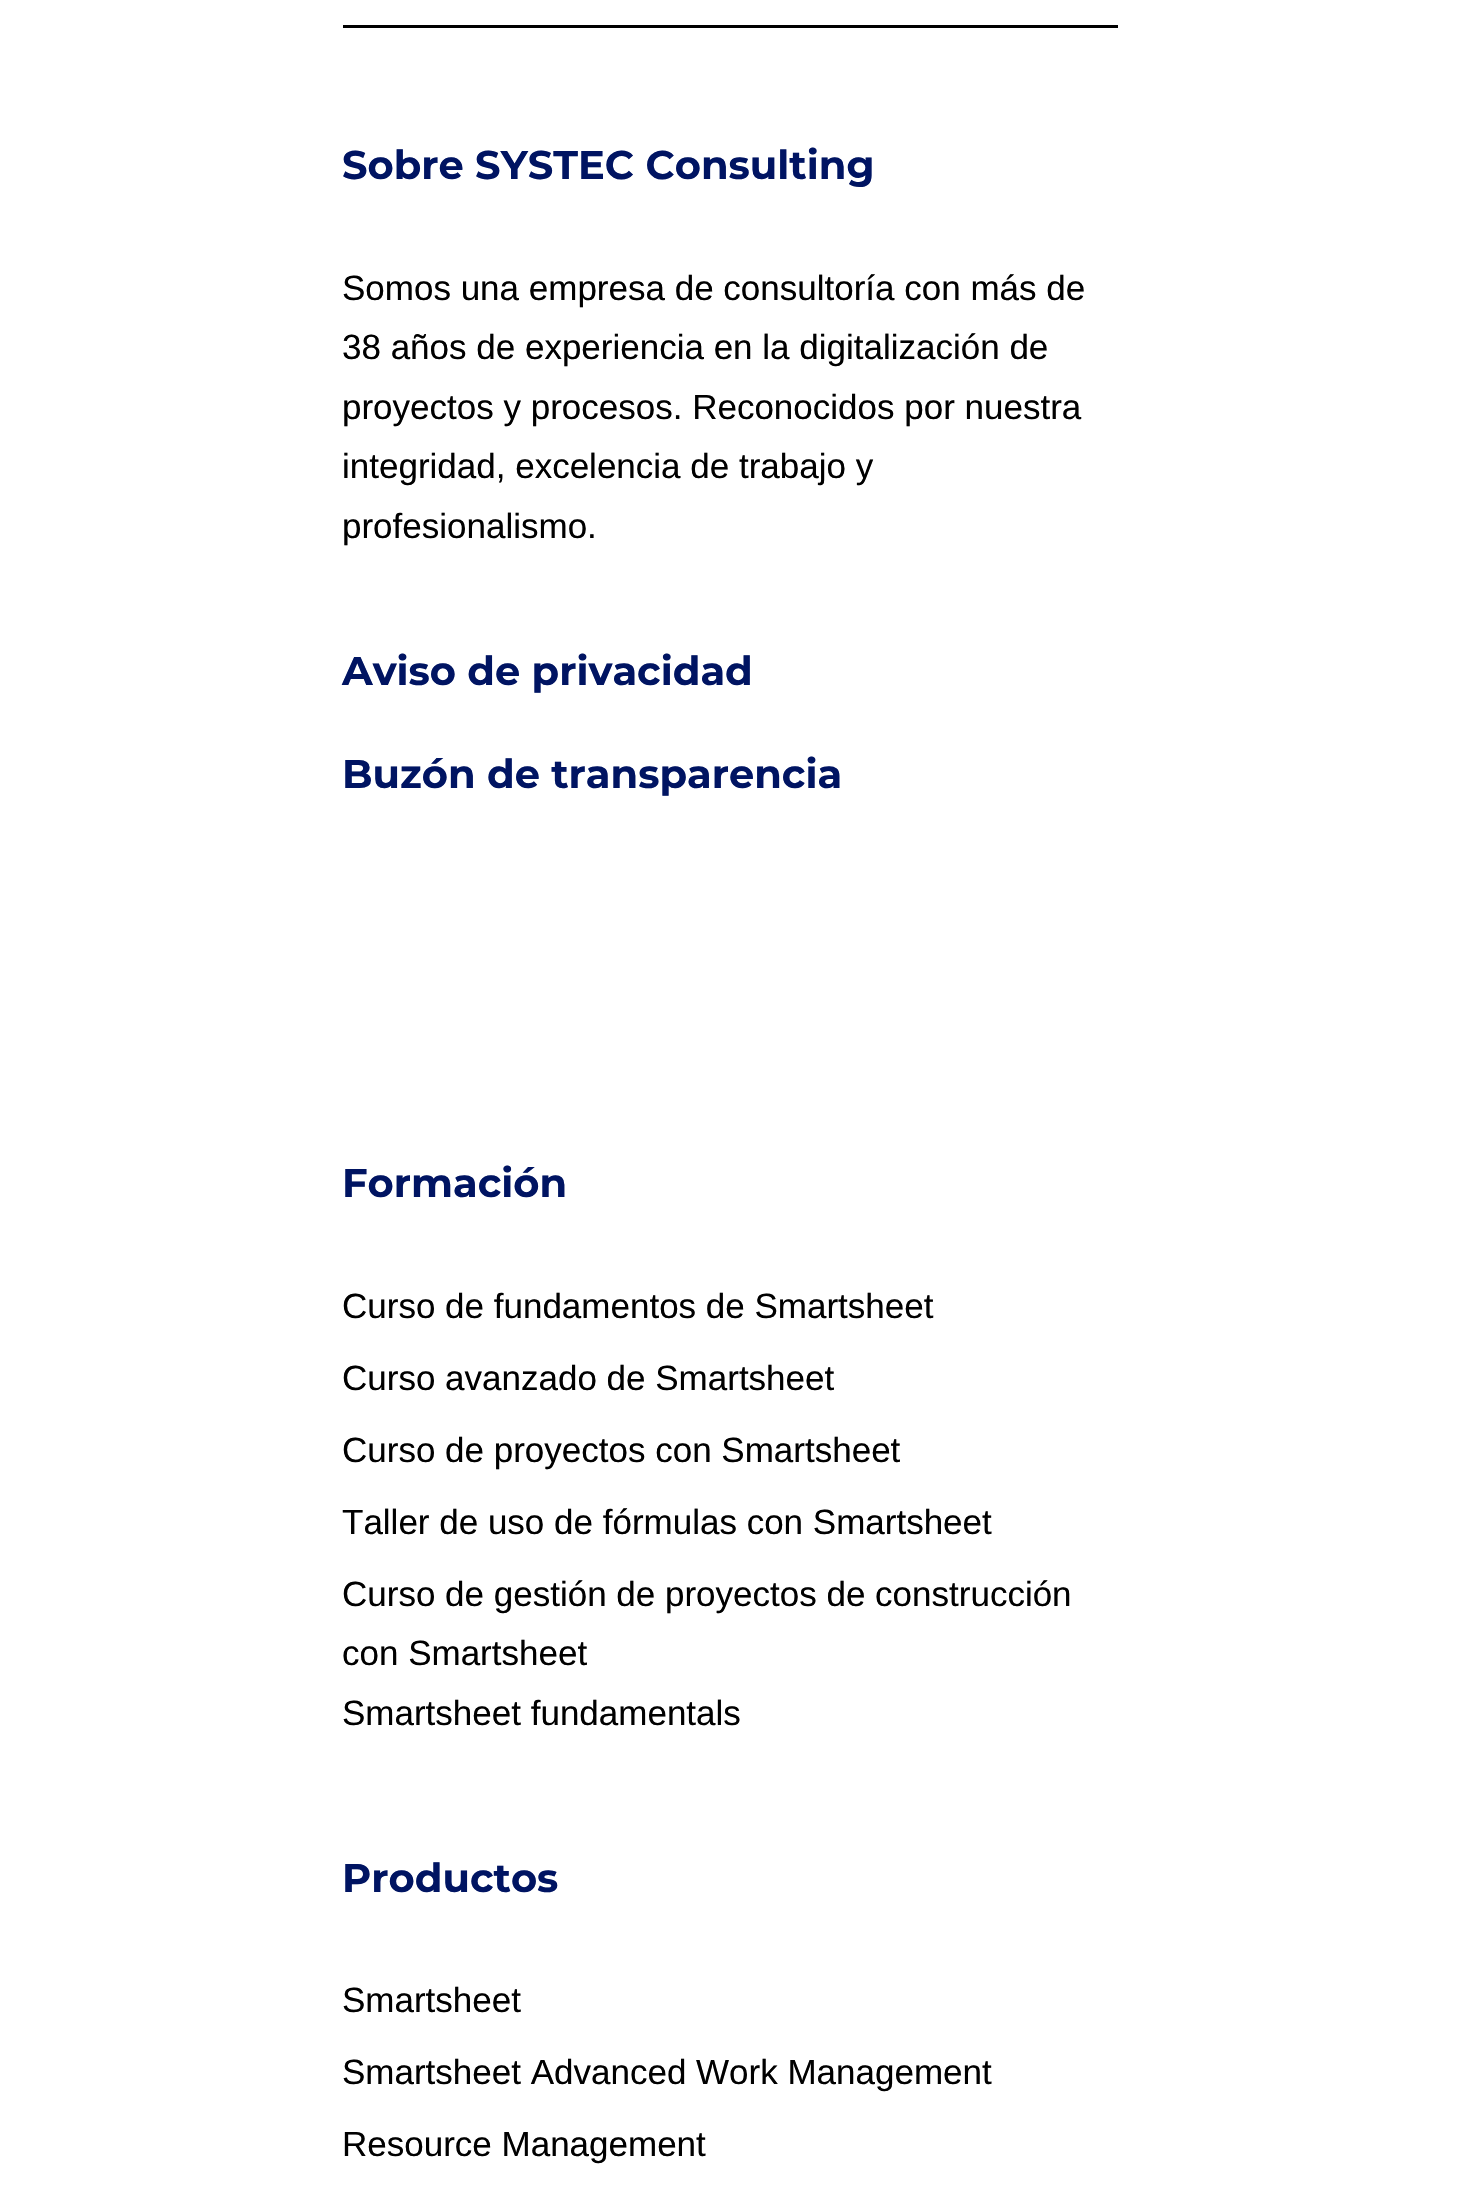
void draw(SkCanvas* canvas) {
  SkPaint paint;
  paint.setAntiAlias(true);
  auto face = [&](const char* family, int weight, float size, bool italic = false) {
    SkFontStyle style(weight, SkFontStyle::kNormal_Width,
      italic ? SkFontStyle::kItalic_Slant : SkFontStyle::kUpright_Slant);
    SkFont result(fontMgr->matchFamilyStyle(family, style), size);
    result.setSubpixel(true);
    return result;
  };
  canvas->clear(0xffffffff);
  paint.setColor(0xff000000);
  canvas->drawRect(SkRect::MakeXYWH(343, 25, 775, 3), paint);
  auto f0 = face("Montserrat", 700, 40);
  paint.setColor(0xff001462);
  canvas->drawString("Sobre SYSTEC Consulting", 342, 179, f0, paint);
  auto f1 = face("Liberation Sans", 400, 35);
  paint.setColor(0xff000000);
  {
    const struct { const char* s; float x, y; } items[] = {
      {"Somos una empresa de consultoría con más de", 342, 300},
      {"38 años de experiencia en la digitalización de", 342, 359},
      {"proyectos y procesos. Reconocidos por nuestra", 342, 419},
      {"integridad, excelencia de trabajo y", 342, 478},
      {"profesionalismo.", 342, 538},
    };
    for (auto [s, x, y] : items) {
      canvas->drawString(s, x, y, f1, paint);
    }
  }
  paint.setColor(0xff001462);
  {
    const struct { const char* s; float x, y; } items[] = {
      {"Aviso de privacidad", 342, 685},
      {"Buzón de transparencia", 342, 788},
      {"Formación", 342, 1197},
    };
    for (auto [s, x, y] : items) {
      canvas->drawString(s, x, y, f0, paint);
    }
  }
  paint.setColor(0xff000000);
  {
    const struct { const char* s; float x, y; } items[] = {
      {"Curso de fundamentos de Smartsheet", 342, 1318},
      {"Curso avanzado de Smartsheet", 342, 1390},
      {"Curso de proyectos con Smartsheet", 342, 1462},
      {"Taller de uso de fórmulas con Smartsheet", 342, 1534},
      {"Curso de gestión de proyectos de construcción", 342, 1606},
      {"con Smartsheet", 342, 1665},
      {"Smartsheet fundamentals", 342, 1725},
    };
    for (auto [s, x, y] : items) {
      canvas->drawString(s, x, y, f1, paint);
    }
  }
  paint.setColor(0xff001462);
  canvas->drawString("Productos", 342, 1892, f0, paint);
  paint.setColor(0xff000000);
  {
    const struct { const char* s; float x, y; } items[] = {
      {"Smartsheet", 342, 2012},
      {"Smartsheet Advanced Work Management", 342, 2084},
      {"Resource Management", 342, 2156},
    };
    for (auto [s, x, y] : items) {
      canvas->drawString(s, x, y, f1, paint);
    }
  }
}
